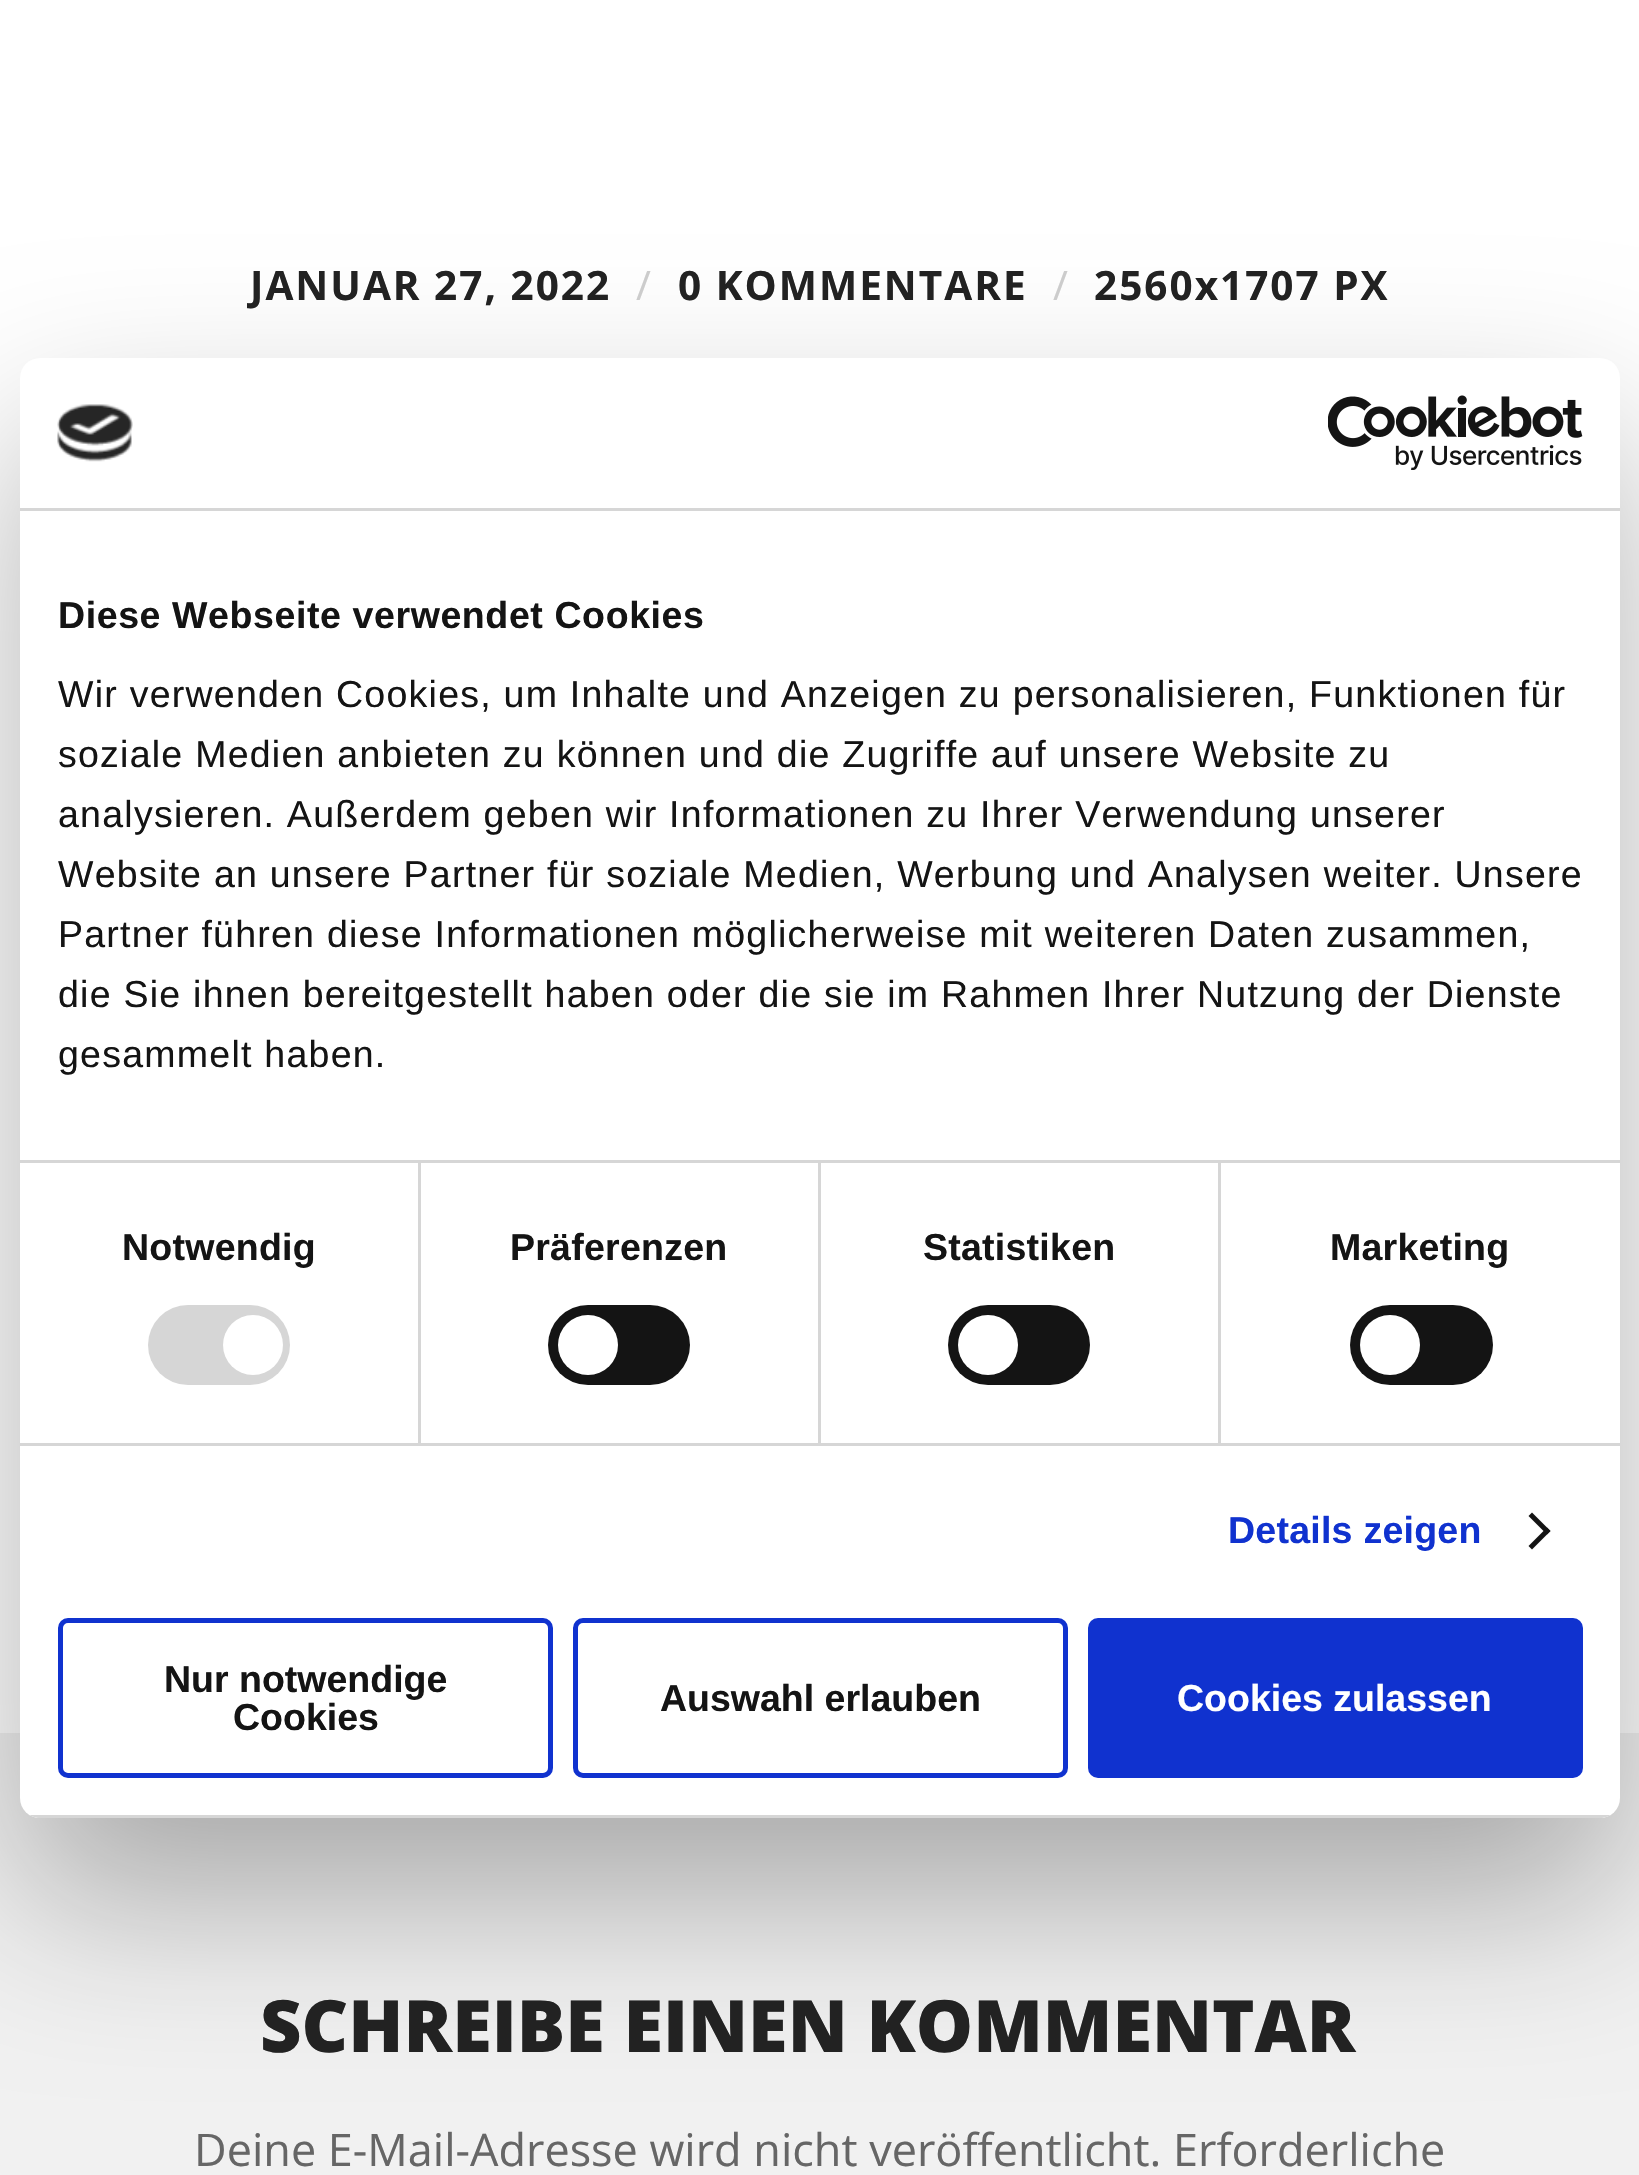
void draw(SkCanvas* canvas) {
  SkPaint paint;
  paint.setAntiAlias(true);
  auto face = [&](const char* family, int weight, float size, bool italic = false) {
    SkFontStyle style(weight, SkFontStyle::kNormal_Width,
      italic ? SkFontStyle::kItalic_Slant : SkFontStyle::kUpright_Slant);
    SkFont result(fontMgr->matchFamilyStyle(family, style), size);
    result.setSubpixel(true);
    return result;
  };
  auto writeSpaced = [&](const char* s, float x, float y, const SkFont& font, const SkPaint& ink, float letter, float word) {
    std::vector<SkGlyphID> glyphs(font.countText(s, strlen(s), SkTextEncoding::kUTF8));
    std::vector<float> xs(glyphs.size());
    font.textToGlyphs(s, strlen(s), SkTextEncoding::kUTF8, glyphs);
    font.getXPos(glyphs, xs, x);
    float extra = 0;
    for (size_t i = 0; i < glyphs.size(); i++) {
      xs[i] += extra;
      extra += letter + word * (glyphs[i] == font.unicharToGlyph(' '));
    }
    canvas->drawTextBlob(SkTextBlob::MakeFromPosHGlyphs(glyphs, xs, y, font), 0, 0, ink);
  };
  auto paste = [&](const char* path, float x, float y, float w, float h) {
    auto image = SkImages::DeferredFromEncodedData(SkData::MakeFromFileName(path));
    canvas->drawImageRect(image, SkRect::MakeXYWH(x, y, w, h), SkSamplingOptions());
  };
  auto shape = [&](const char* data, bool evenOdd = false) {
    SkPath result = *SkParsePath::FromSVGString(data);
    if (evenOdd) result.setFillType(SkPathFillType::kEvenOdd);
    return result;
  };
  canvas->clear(0xffffffff);
  paint.setColor(0xfff1f1f1);
  canvas->drawRect(SkRect::MakeXYWH(0, 1733, 1639, 442), paint);
  paint.setColor(0x4d000000);
  paint.setMaskFilter(SkMaskFilter::MakeBlur(kNormal_SkBlurStyle, 85));
  canvas->drawRoundRect(SkRect::MakeXYWH(20, 438, 1600, 1460), 20, 20, paint);
  paint.setMaskFilter(nullptr);
  paint.setColor(0xffffffff);
  canvas->drawRoundRect(SkRect::MakeXYWH(20, 358, 1600, 1460), 20, 20, paint);
  paint.setColor(0xffd6d6d6);
  canvas->drawRect(SkRect::MakeXYWH(20, 508, 1600, 3), paint);
  paste("img/1.png", 57, 404, 76, 58);
  paste("img/2.png", 1328, 395, 255, 75);
  {
    const struct { float x, y, w, h; SkColor color; } items[] = {
      {20, 1160, 1600, 3, 0xffd6d6d6},
      {20, 1443, 1600, 3, 0xffd6d6d6},
      {418, 1163, 3, 280, 0xffd6d6d6},
    };
    for (auto [x, y, w, h, color] : items) {
      paint.setColor(color);
      canvas->drawRect(SkRect::MakeXYWH(x, y, w, h), paint);
    }
  }
  canvas->drawRoundRect(SkRect::MakeXYWH(148, 1305, 142, 80), 40, 40, paint);
  paint.setColor(0xffffffff);
  canvas->drawCircle(253, 1345, 30, paint);
  paint.setColor(0xffd6d6d6);
  canvas->drawRect(SkRect::MakeXYWH(818, 1163, 3, 280), paint);
  paint.setColor(0xff141414);
  canvas->drawRoundRect(SkRect::MakeXYWH(548, 1305, 142, 80), 40, 40, paint);
  paint.setColor(0xffffffff);
  canvas->drawCircle(588, 1345, 30, paint);
  paint.setColor(0xffd6d6d6);
  canvas->drawRect(SkRect::MakeXYWH(1218, 1163, 3, 280), paint);
  paint.setColor(0xff141414);
  canvas->drawRoundRect(SkRect::MakeXYWH(948, 1305, 142, 80), 40, 40, paint);
  paint.setColor(0xffffffff);
  canvas->drawCircle(988, 1345, 30, paint);
  paint.setColor(0xff141414);
  canvas->drawRoundRect(SkRect::MakeXYWH(1350, 1305, 143, 80), 40, 40, paint);
  paint.setColor(0xffffffff);
  canvas->drawCircle(1390, 1345, 30, paint);
  paint.setColor(0xff141414);
  canvas->drawPath(shape("M1532 1512.5L1550.5 1531L1547 1534.5L1528.5 1516Z"), paint);
  canvas->drawPath(shape("M1547 1527.5L1550.5 1531L1532 1549.5L1528.5 1546Z"), paint);
  canvas->save();
  canvas->clipPath(shape("M40 358H1600C1611 358 1620 367 1620 378V1798C1620 1809 1611 1818 1600 1818H40C29 1818 20 1809 20 1798V378C20 367 29 358 40 358Z"), true);
  paint.setColor(0xffd6d6d6);
  canvas->drawRect(SkRect::MakeXYWH(29, 1815, 1582, 3), paint);
  canvas->restore();
  paint.setStroke(true);
  paint.setStrokeWidth(5);
  paint.setColor(0xff1032cf);
  canvas->drawRoundRect(SkRect::MakeXYWH(60.5f, 1620.5f, 490, 155), 7.5f, 7.5f, paint);
  canvas->drawRoundRect(SkRect::MakeXYWH(575.5f, 1620.5f, 490, 155), 7.5f, 7.5f, paint);
  paint.setStroke(false);
  canvas->drawRoundRect(SkRect::MakeXYWH(1090.5f, 1620.5f, 490, 155), 7.5f, 7.5f, paint);
  paint.setStroke(true);
  canvas->drawRoundRect(SkRect::MakeXYWH(1090.5f, 1620.5f, 490, 155), 7.5f, 7.5f, paint);
  auto f0 = face("Open Sans", 700, 40.5f);
  paint.setStroke(false);
  paint.setColor(0xff222222);
  writeSpaced("JANUAR 27, 2022", 250, 300, f0, paint, 2, 0);
  auto f1 = face("Open Sans", 400, 40.5f);
  paint.setColor(0xffcccccc);
  writeSpaced("/", 636, 300, f1, paint, 2, 0);
  paint.setColor(0xff222222);
  writeSpaced("0 KOMMENTARE", 678, 300, f0, paint, 2, 0);
  paint.setColor(0xffcccccc);
  writeSpaced("/", 1053, 300, f1, paint, 2, 0);
  paint.setColor(0xff222222);
  writeSpaced("2560x1707 PX", 1094, 300, f0, paint, 2, 0);
  auto f2 = face("Open Sans", 800, 72);
  canvas->drawString("SCHREIBE EINEN KOMMENTAR", 260, 2052, f2, paint);
  auto f3 = face("Open Sans", 400, 45);
  paint.setColor(0xff666666);
  canvas->drawString("Deine E-Mail-Adresse wird nicht veröffentlicht. Erforderliche", 194, 2166, f3, paint);
  auto f4 = face("Liberation Sans", 700, 37.5f);
  paint.setColor(0xff141414);
  writeSpaced("Diese Webseite verwendet Cookies", 58, 628, f4, paint, 0.6f, 0);
  auto f5 = face("Liberation Sans", 400, 37.5f);
  {
    const struct { const char* s; float x, y; } items[] = {
      {"Wir verwenden Cookies, um Inhalte und Anzeigen zu personalisieren, Funktionen für", 58, 707},
      {"soziale Medien anbieten zu können und die Zugriffe auf unsere Website zu", 58, 767},
      {"analysieren. Außerdem geben wir Informationen zu Ihrer Verwendung unserer", 58, 827},
      {"Website an unsere Partner für soziale Medien, Werbung und Analysen weiter. Unsere", 58, 887},
      {"Partner führen diese Informationen möglicherweise mit weiteren Daten zusammen,", 58, 947},
      {"die Sie ihnen bereitgestellt haben oder die sie im Rahmen Ihrer Nutzung der Dienste", 58, 1007},
      {"gesammelt haben.", 58, 1067},
    };
    for (auto [s, x, y] : items) {
      writeSpaced(s, x, y, f5, paint, 1.25f, 0);
    }
  }
  {
    const struct { const char* s; float x, y; } items[] = {
      {"Notwendig", 122, 1260},
      {"Präferenzen", 510, 1260},
      {"Statistiken", 923, 1260},
      {"Marketing", 1330, 1260},
    };
    for (auto [s, x, y] : items) {
      writeSpaced(s, x, y, f4, paint, 0.25f, 0);
    }
  }
  paint.setColor(0xff1032cf);
  writeSpaced("Details zeigen", 1228, 1543, f4, paint, 0.25f, 0);
  paint.setColor(0xff141414);
  {
    const struct { const char* s; float x, y; } items[] = {
      {"Nur notwendige", 164, 1692},
      {"Cookies", 233, 1730},
      {"Auswahl erlauben", 660, 1711},
    };
    for (auto [s, x, y] : items) {
      canvas->drawString(s, x, y, f4, paint);
    }
  }
  paint.setColor(0xffffffff);
  canvas->drawString("Cookies zulassen", 1177, 1711, f4, paint);
}
